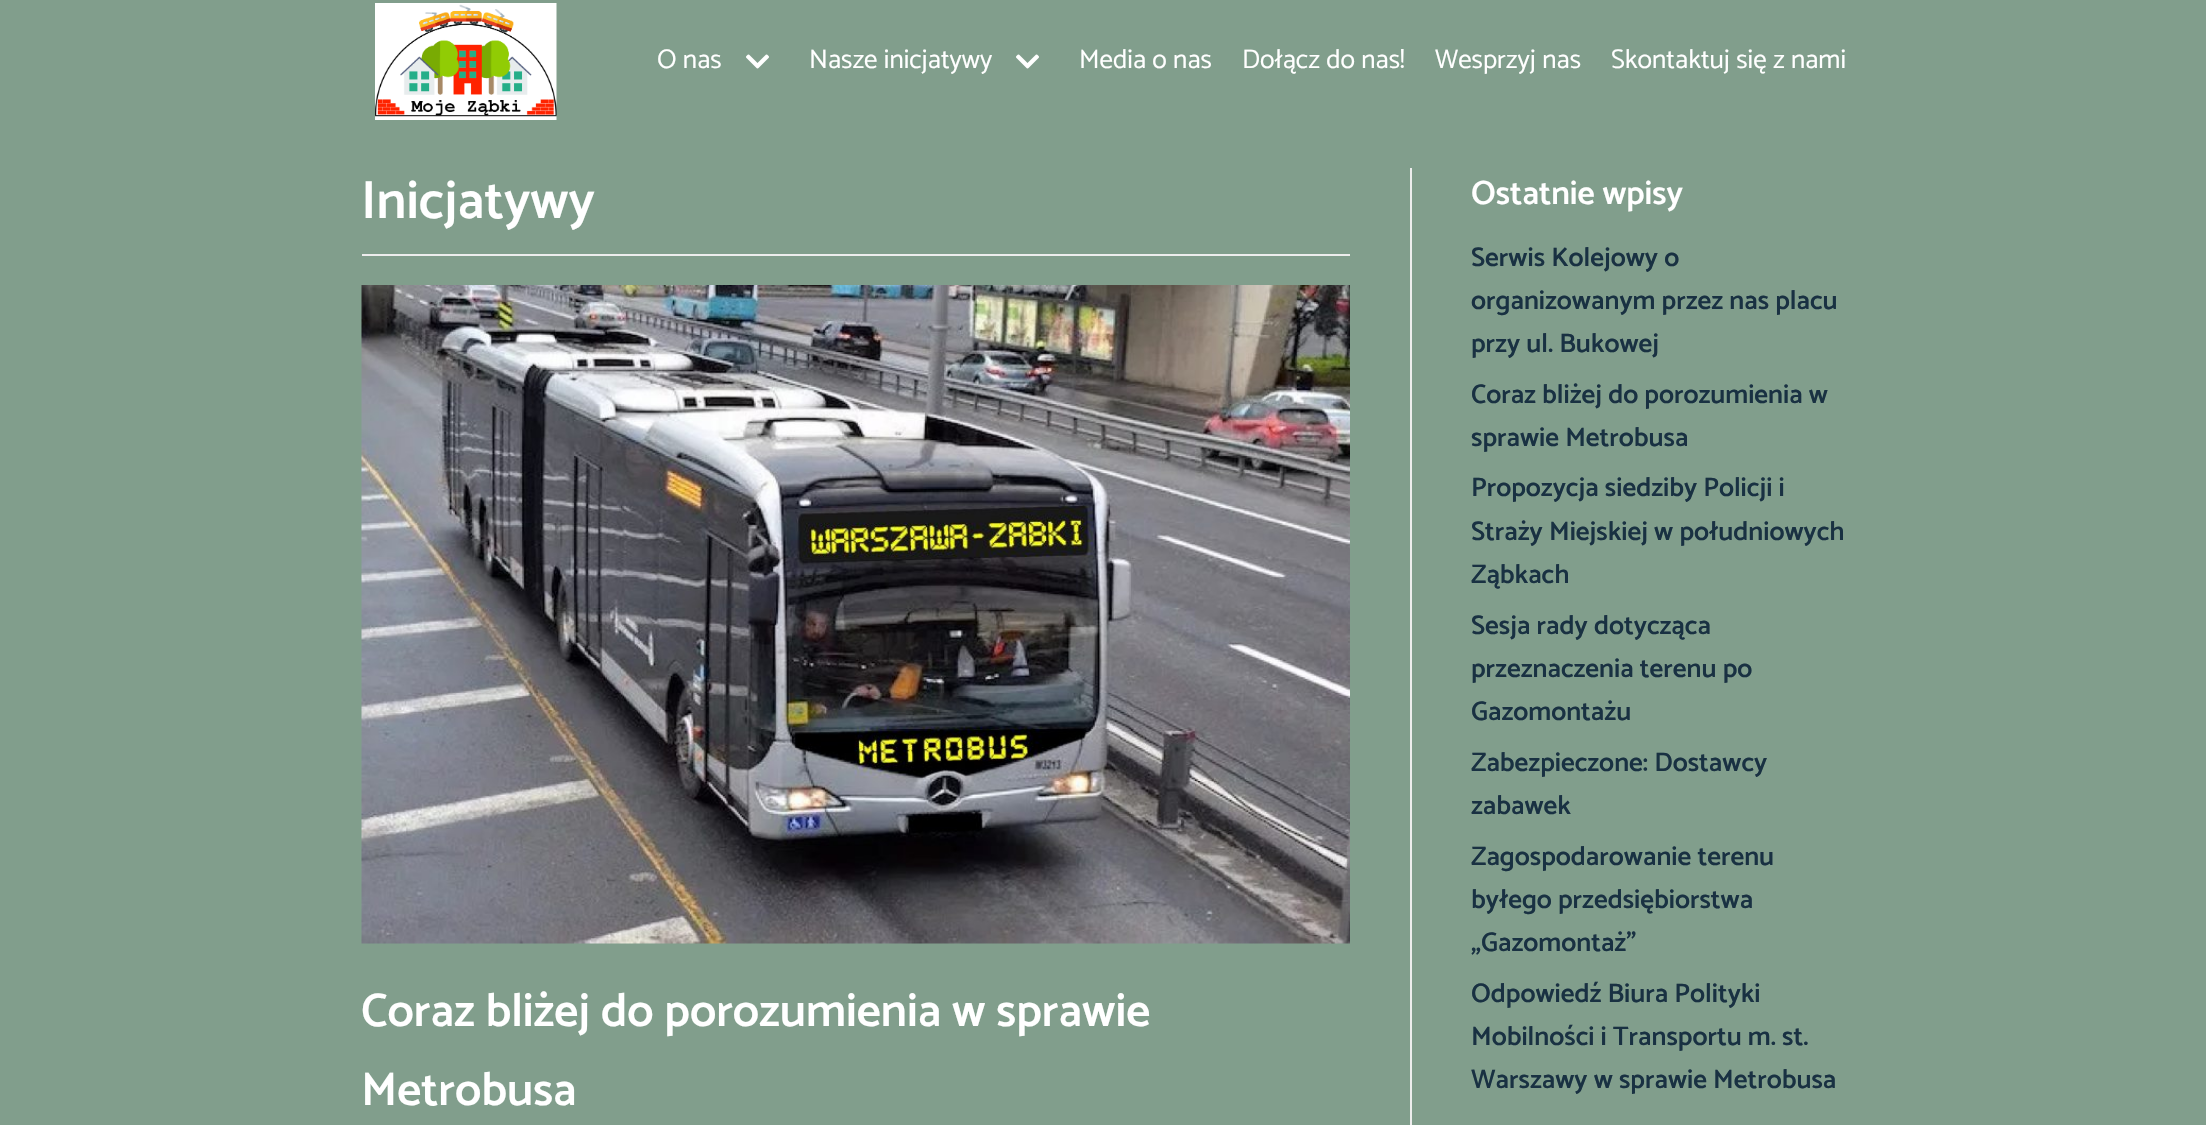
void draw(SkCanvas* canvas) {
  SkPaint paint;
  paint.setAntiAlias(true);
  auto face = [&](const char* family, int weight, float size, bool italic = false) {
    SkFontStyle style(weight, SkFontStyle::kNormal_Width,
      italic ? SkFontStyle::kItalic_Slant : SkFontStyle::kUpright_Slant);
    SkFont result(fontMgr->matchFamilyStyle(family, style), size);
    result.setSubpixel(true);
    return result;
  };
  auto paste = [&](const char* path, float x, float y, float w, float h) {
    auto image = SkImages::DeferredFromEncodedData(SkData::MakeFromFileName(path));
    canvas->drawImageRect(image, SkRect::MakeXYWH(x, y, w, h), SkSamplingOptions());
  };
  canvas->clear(0xff819e8c);
  paste("img/1.png", 375, 3, 182, 117);
  paste("img/2.png", 746, 54, 23, 15);
  paste("img/2.png", 1016, 54, 23, 15);
  paint.setColor(0xffededed);
  canvas->drawRect(SkRect::MakeXYWH(362, 254, 988, 2), paint);
  paste("img/3.png", 361, 285, 989, 659);
  canvas->drawRect(SkRect::MakeXYWH(1410, 168, 2, 957), paint);
  auto f0 = face("Catamaran", 400, 27);
  paint.setColor(0xffffffff);
  {
    const struct { const char* s; float x, y; } items[] = {
      {"O nas", 657, 68},
      {"Nasze inicjatywy", 809, 68},
      {"Media o nas", 1079, 68},
      {"Dołącz do nas!", 1242, 68},
      {"Wesprzyj nas", 1435, 68},
      {"Skontaktuj się z nami", 1611, 68},
    };
    for (auto [s, x, y] : items) {
      canvas->drawString(s, x, y, f0, paint);
    }
  }
  auto f1 = face("Catamaran", 600, 54);
  canvas->drawString("Inicjatywy", 361, 218, f1, paint);
  auto f2 = face("Catamaran", 600, 47.25f);
  canvas->drawString("Coraz bliżej do porozumienia w sprawie", 361, 1026, f2, paint);
  canvas->drawString("Metrobusa", 361, 1105, f2, paint);
  auto f3 = face("Catamaran", 600, 33.75f);
  canvas->drawString("Ostatnie wpisy", 1471, 204, f3, paint);
  auto f4 = face("Catamaran", 600, 27);
  paint.setColor(0xff193142);
  {
    const struct { const char* s; float x, y; } items[] = {
      {"Serwis Kolejowy o", 1471, 266},
      {"organizowanym przez nas placu", 1471, 309},
      {"przy ul. Bukowej", 1471, 352},
      {"Coraz bliżej do porozumienia w", 1471, 403},
      {"sprawie Metrobusa", 1471, 446},
      {"Propozycja siedziby Policji i", 1471, 496},
      {"Straży Miejskiej w południowych", 1471, 540},
      {"Ząbkach", 1471, 583},
      {"Sesja rady dotycząca", 1471, 634},
      {"przeznaczenia terenu po", 1471, 677},
      {"Gazomontażu", 1471, 720},
      {"Zabezpieczone: Dostawcy", 1471, 771},
      {"zabawek", 1471, 814},
      {"Zagospodarowanie terenu", 1471, 865},
      {"byłego przedsiębiorstwa", 1471, 908},
      {"„Gazomontaż”", 1471, 951},
      {"Odpowiedź Biura Polityki", 1471, 1002},
      {"Mobilności i Transportu m. st.", 1471, 1045},
      {"Warszawy w sprawie Metrobusa", 1471, 1088},
    };
    for (auto [s, x, y] : items) {
      canvas->drawString(s, x, y, f4, paint);
    }
  }
}
